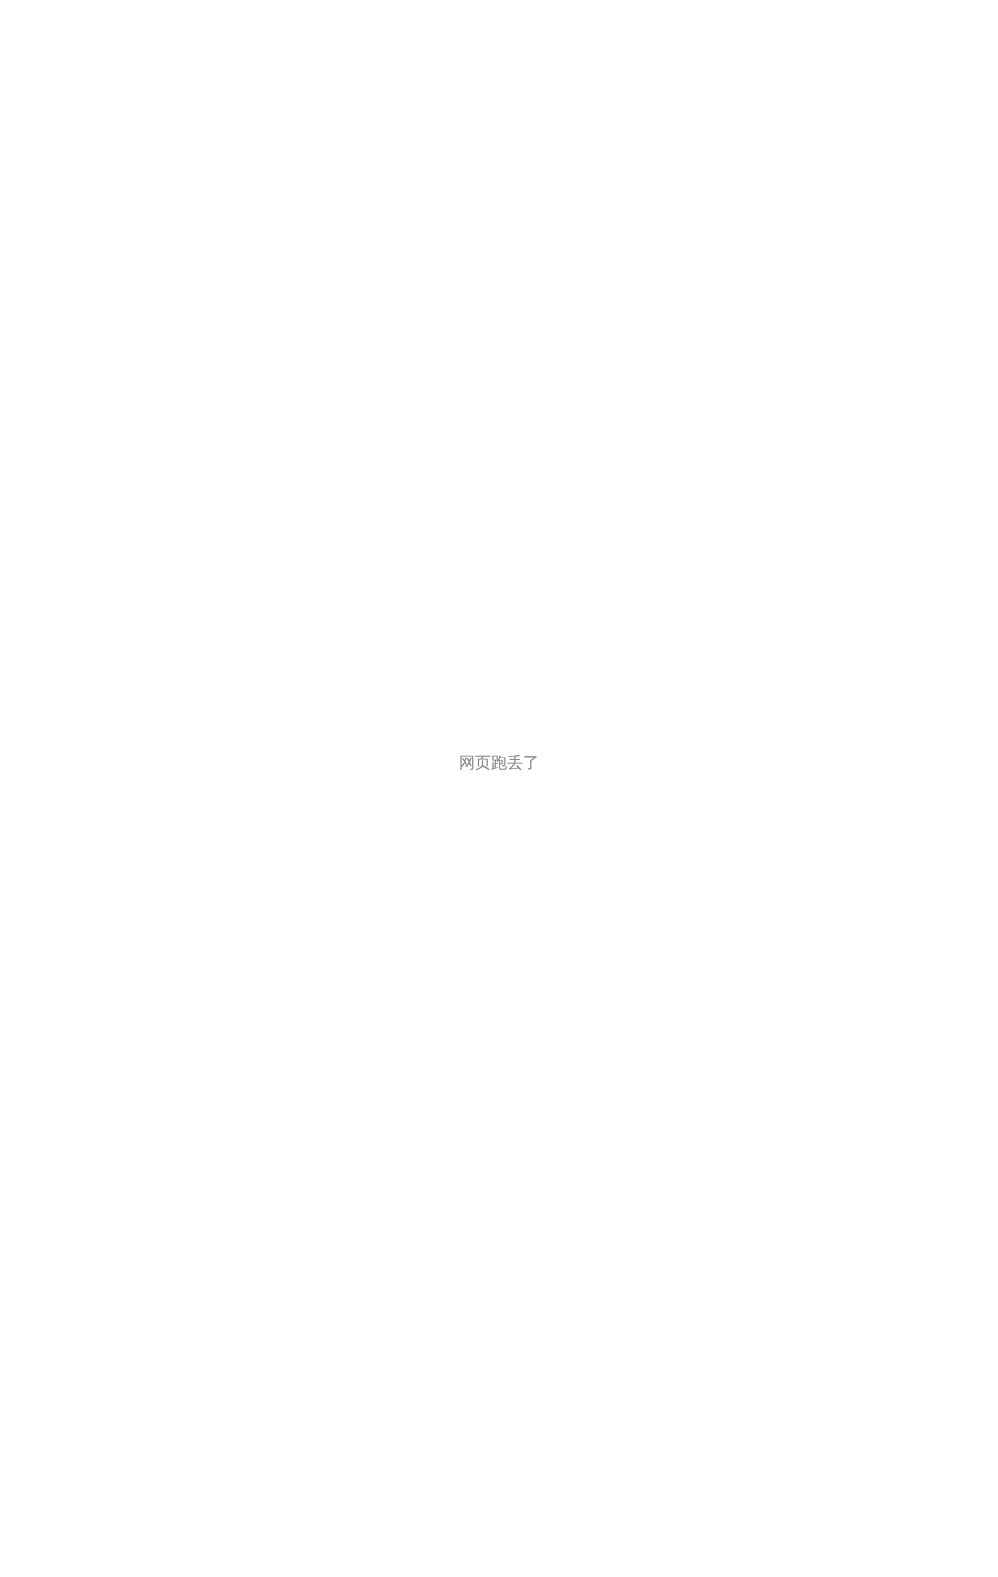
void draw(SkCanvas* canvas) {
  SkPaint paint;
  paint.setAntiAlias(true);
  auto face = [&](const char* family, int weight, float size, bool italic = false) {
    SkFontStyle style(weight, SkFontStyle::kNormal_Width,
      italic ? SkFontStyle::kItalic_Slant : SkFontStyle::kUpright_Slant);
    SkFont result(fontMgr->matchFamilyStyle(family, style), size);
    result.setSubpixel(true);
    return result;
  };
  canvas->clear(0xffffffff);
  auto f0 = face("WenQuanYi Zen Hei", 500, 16);
  paint.setColor(0xff888888);
  canvas->drawString("网页跑丢了", 459, 768, f0, paint);
}
